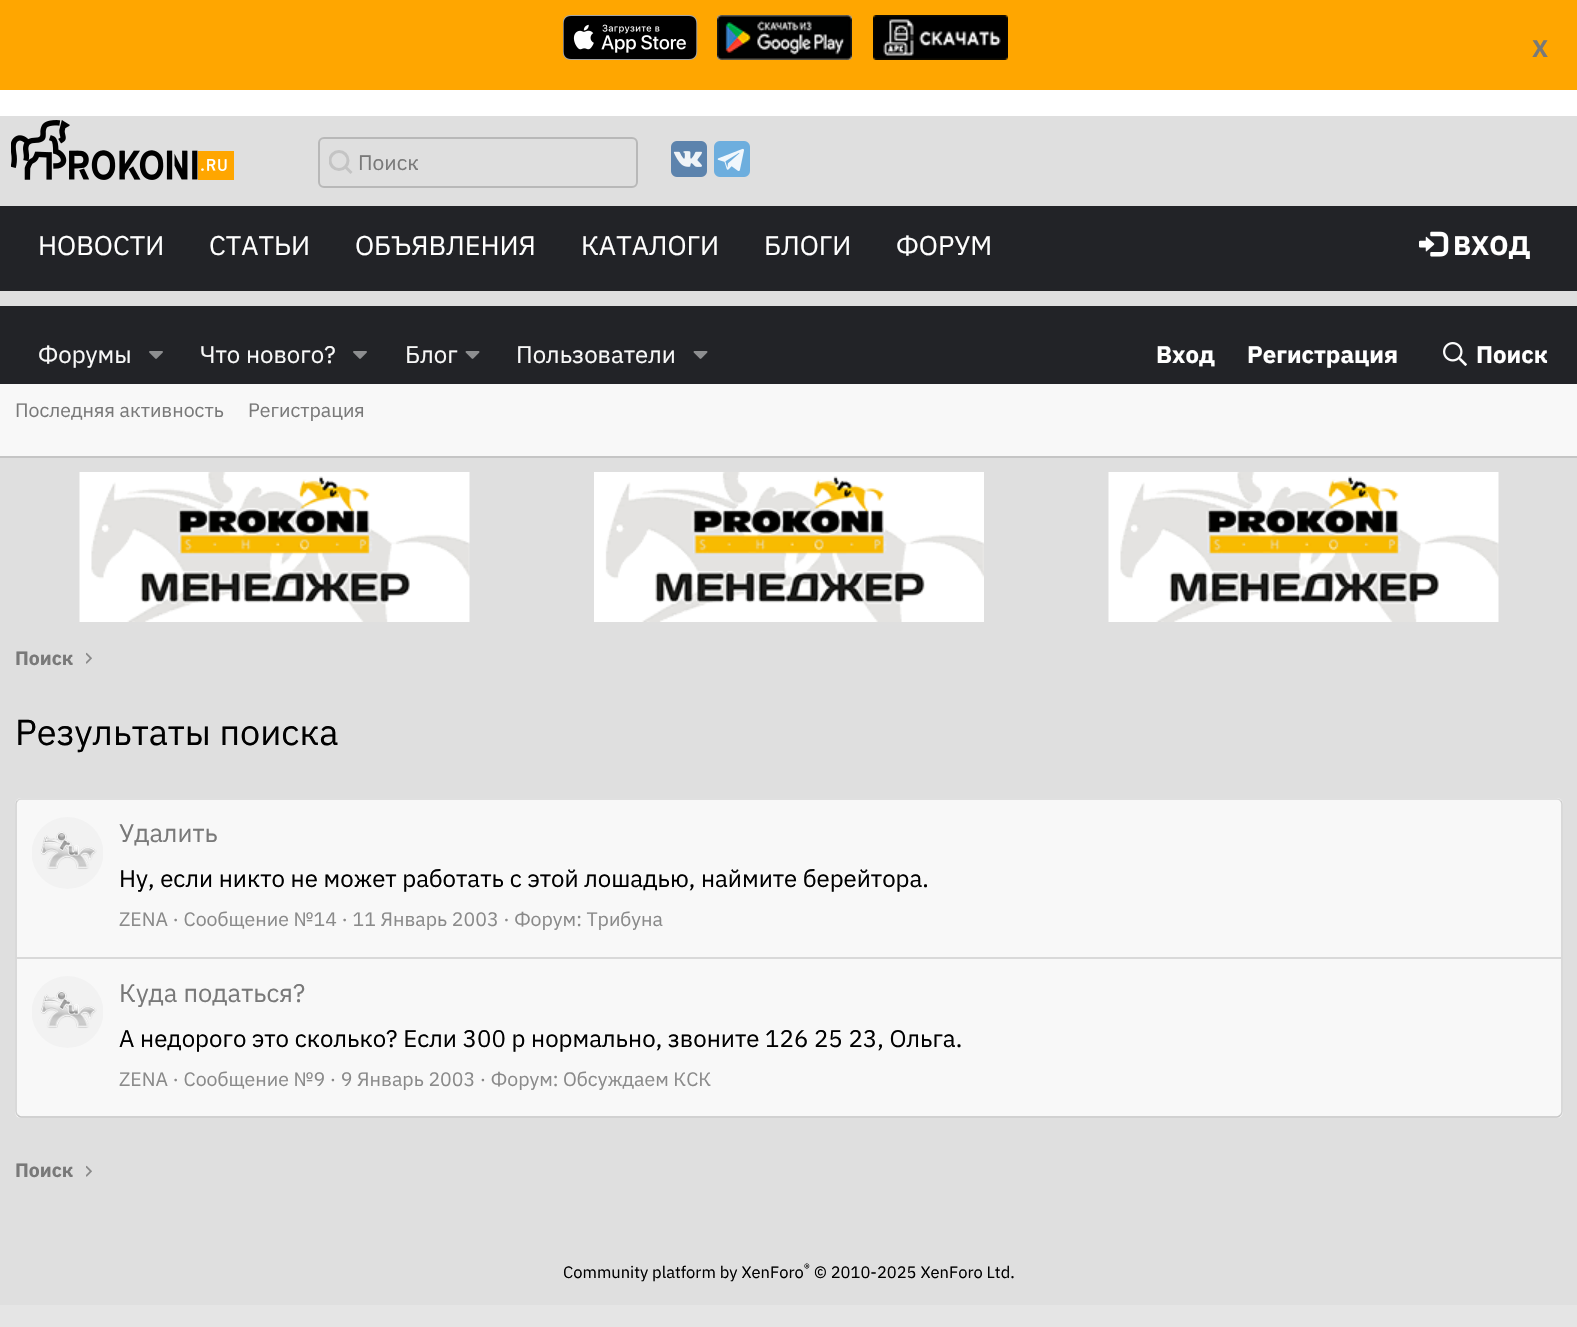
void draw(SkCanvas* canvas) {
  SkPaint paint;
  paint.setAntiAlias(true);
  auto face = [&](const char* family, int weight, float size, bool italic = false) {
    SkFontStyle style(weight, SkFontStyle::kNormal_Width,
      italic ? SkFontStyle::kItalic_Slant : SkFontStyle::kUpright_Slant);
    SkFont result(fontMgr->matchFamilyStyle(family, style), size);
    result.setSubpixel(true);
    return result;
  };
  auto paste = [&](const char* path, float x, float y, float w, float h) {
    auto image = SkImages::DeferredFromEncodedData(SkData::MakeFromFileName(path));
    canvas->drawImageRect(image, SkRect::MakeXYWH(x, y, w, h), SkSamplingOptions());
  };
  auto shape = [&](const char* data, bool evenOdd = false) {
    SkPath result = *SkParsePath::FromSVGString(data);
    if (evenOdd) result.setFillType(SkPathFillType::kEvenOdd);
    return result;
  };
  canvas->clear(0xffffffff);
  paint.setColor(0xffffa600);
  canvas->drawRect(SkRect::MakeXYWH(0, 0, 1577, 90), paint);
  paste("img/1.png", 563, 15, 135, 45);
  paste("img/2.png", 717, 15, 135, 45);
  paste("img/3.png", 873, 15, 135, 45);
  paint.setColor(0xffdfdfdf);
  canvas->drawRect(SkRect::MakeXYWH(0, 116, 1577, 1189), paint);
  paste("img/4.png", 11, 120, 223, 60);
  paint.setColor(0xffc4c4c4);
  canvas->drawPath(shape("M350.5 174L344.5 168L346.5 166L352.5 172Z", true), paint);
  canvas->save();
  canvas->clipRect(SkRect::MakeXYWH(329, 150, 24, 24));
  paint.setStroke(true);
  paint.setStrokeWidth(3);
  canvas->drawCircle(339, 160.5f, 9, paint);
  canvas->restore();
  paint.setStrokeWidth(2);
  paint.setColor(0xffb8b8b8);
  canvas->drawRoundRect(SkRect::MakeXYWH(319, 138, 318, 49), 5, 5, paint);
  paste("img/5.png", 671, 141, 36, 36);
  paste("img/6.png", 714, 141, 36, 36);
  paint.setStroke(false);
  paint.setColor(0xff222327);
  canvas->drawRect(SkRect::MakeXYWH(0, 206, 1577, 85), paint);
  paste("img/7.png", 1419, 231, 30, 26);
  canvas->drawRect(SkRect::MakeXYWH(0, 306, 1577, 78), paint);
  paste("img/8.png", 149, 351, 14, 8);
  paste("img/8.png", 353, 351, 14, 8);
  paste("img/9.png", 465, 351, 15, 8);
  paste("img/9.png", 693, 351, 15, 8);
  paste("img/10.png", 1443, 342, 24, 24);
  paint.setColor(0xfff8f8f8);
  canvas->drawRect(SkRect::MakeXYWH(0, 384, 1577, 72), paint);
  paint.setColor(0xffc5c5c5);
  canvas->drawRect(SkRect::MakeXYWH(0, 456, 1577, 2), paint);
  paste("img/11.png", 79, 472, 391, 150);
  paste("img/12.png", 594, 472, 390, 150);
  paste("img/13.png", 1108, 472, 391, 150);
  paste("img/14.png", 86, 652, 6, 12);
  paint.setColor(0xfff8f8f8);
  canvas->drawRoundRect(SkRect::MakeXYWH(15, 798, 1548, 320), 6, 6, paint);
  paint.setStroke(true);
  paint.setStrokeWidth(1.5f);
  paint.setColor(0xffd9d9d9);
  canvas->drawPath(shape("M17.5 800.5C18.5 799.5 19.5 799 21 799H1557C1558.5 799 1559.5 799.5 1560.5 800.5"), paint);
  paint.setColor(0xffcfcfcf);
  canvas->drawPath(shape("M1560.5 800.5C1561.5 801.5 1562 802.5 1562 804V1111.5C1562 1113 1561.5 1114 1560.5 1115"), paint);
  paint.setColor(0xffc5c5c5);
  canvas->drawPath(shape("M1560.5 1115C1559.5 1116 1558.5 1117 1557 1117H21C19.5 1117 18.5 1116 17.5 1115"), paint);
  paint.setColor(0xffcfcfcf);
  canvas->drawPath(shape("M17.5 1115C16.5 1114 16 1113 16 1111.5V804C16 802.5 16.5 801.5 17.5 800.5"), paint);
  paste("img/15.png", 32, 817, 71, 72);
  paint.setStroke(false);
  paint.setColor(0xffd9d9d9);
  canvas->drawRect(SkRect::MakeXYWH(17, 957, 1545, 2), paint);
  paste("img/16.png", 32, 976, 71, 72);
  paste("img/14.png", 86, 1165, 6, 12);
  paint.setColor(0xffe5e5e5);
  canvas->drawRect(SkRect::MakeXYWH(0, 1305, 1577, 22), paint);
  auto f0 = face("IBM Plex Sans", 700, 24);
  paint.setColor(0xff797979);
  canvas->drawString("X", 1532, 57, f0, paint);
  auto f1 = face("IBM Plex Sans", 400, 21);
  canvas->drawString("Поиск", 358, 170, f1, paint);
  auto f2 = face("IBM Plex Sans", 400, 27);
  paint.setColor(0xffffffff);
  {
    const struct { const char* s; float x, y; } items[] = {
      {"НОВОСТИ", 38, 255},
      {"СТАТЬИ", 209, 255},
      {"ОБЪЯВЛЕНИЯ", 355, 255},
      {"КАТАЛОГИ", 581, 255},
      {"БЛОГИ", 764, 255},
      {"ФОРУМ", 896, 255},
    };
    for (auto [s, x, y] : items) {
      canvas->drawString(s, x, y, f2, paint);
    }
  }
  auto f3 = face("IBM Plex Sans", 700, 27);
  canvas->drawString("ВХОД", 1453, 255, f3, paint);
  auto f4 = face("IBM Plex Sans", 400, 24);
  paint.setColor(0xfff8f8f8);
  {
    const struct { const char* s; float x, y; } items[] = {
      {"Форумы", 38, 363},
      {"Что нового?", 200, 363},
      {"Блог", 405, 363},
      {"Пользователи", 516, 363},
    };
    for (auto [s, x, y] : items) {
      canvas->drawString(s, x, y, f4, paint);
    }
  }
  paint.setColor(0xffffffff);
  {
    const struct { const char* s; float x, y; } items[] = {
      {"Вход", 1156, 363},
      {"Регистрация", 1247, 363},
      {"Поиск", 1476, 363},
    };
    for (auto [s, x, y] : items) {
      canvas->drawString(s, x, y, f0, paint);
    }
  }
  auto f5 = face("IBM Plex Sans", 400, 19.5f);
  paint.setColor(0xff797979);
  canvas->drawString("Последняя активность", 15, 417, f5, paint);
  canvas->drawString("Регистрация", 248, 417, f5, paint);
  auto f6 = face("IBM Plex Sans", 700, 19.5f);
  canvas->drawString("Поиск", 15, 665, f6, paint);
  auto f7 = face("IBM Plex Sans", 400, 36);
  paint.setColor(0xff000000);
  canvas->drawString("Результаты поиска", 15, 745, f7, paint);
  auto f8 = face("IBM Plex Sans", 400, 25.5f);
  paint.setColor(0xff797979);
  canvas->drawString("Удалить", 119, 842, f8, paint);
  paint.setColor(0xff000000);
  canvas->drawString("Ну, если никто не может работать с этой лошадью, наймите берейтора.", 119, 887, f4, paint);
  paint.setColor(0xff8a8a8a);
  canvas->drawString("ZENA · Сообщение №14 · 11 Январь 2003 · Форум: Трибуна", 119, 926, f5, paint);
  paint.setColor(0xff797979);
  canvas->drawString("Куда податься?", 119, 1002, f8, paint);
  paint.setColor(0xff000000);
  canvas->drawString("А недорого это сколько? Если 300 р нормально, звоните 126 25 23, Ольга.", 119, 1047, f4, paint);
  paint.setColor(0xff8a8a8a);
  canvas->drawString("ZENA · Сообщение №9 · 9 Январь 2003 · Форум: Обсуждаем КСК", 119, 1086, f5, paint);
  paint.setColor(0xff797979);
  canvas->drawString("Поиск", 15, 1177, f6, paint);
  auto f9 = face("IBM Plex Sans", 400, 16.5f);
  paint.setColor(0xff000000);
  canvas->drawString("Community platform by XenForo", 563, 1278, f9, paint);
  auto f10 = face("IBM Plex Sans", 400, 12);
  canvas->drawString("®", 804, 1272, f10, paint);
  canvas->drawString("© 2010-2025 XenForo Ltd.", 814, 1278, f9, paint);
}
